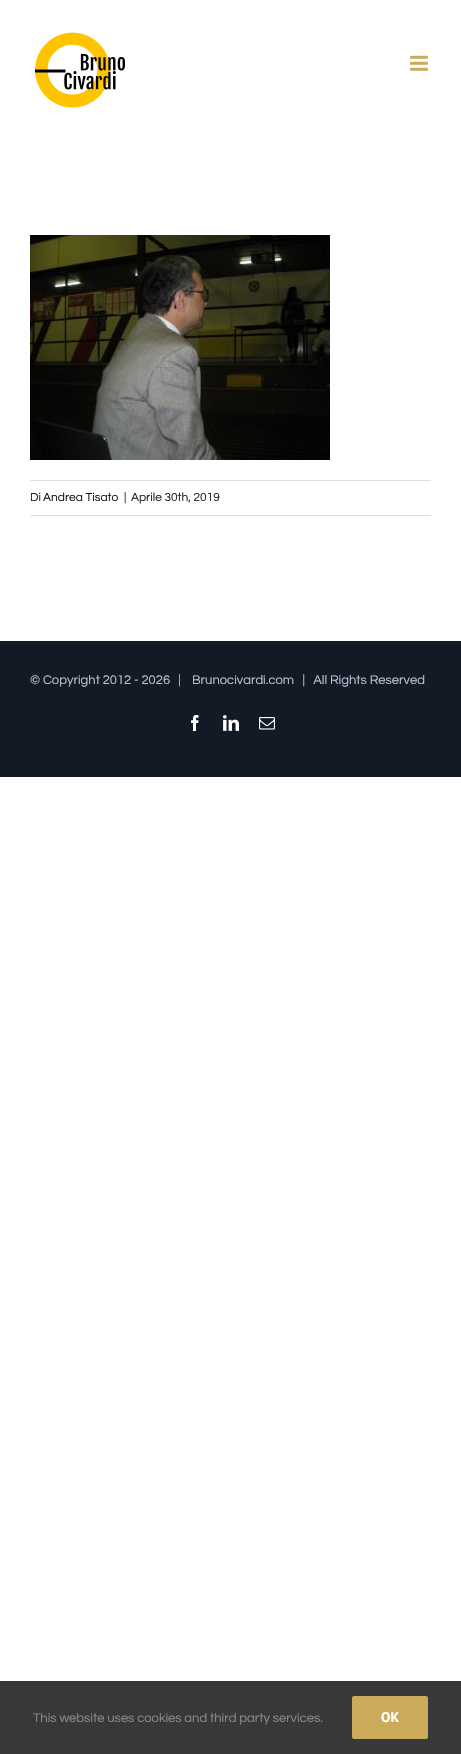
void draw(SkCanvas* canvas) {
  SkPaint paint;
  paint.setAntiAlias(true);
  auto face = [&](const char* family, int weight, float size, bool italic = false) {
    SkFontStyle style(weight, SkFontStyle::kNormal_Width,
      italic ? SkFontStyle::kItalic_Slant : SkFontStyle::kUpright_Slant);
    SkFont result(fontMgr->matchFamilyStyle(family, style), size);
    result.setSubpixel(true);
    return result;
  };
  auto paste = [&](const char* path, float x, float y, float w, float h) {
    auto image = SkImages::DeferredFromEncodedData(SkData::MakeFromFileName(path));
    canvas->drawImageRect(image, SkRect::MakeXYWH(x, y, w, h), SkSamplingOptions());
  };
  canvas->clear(0xffffffff);
  paste("img/1.png", 35, 32, 90, 76);
  paste("img/2.png", 410, 55, 18, 16);
  paste("img/3.png", 30, 235, 300, 225);
  {
    const struct { float x, y, w, h; SkColor color; } items[] = {
      {30, 480, 401, 1, 0xffe0dede},
      {30, 515, 401, 1, 0xffe0dede},
      {0, 641, 461, 136, 0xff121a26},
    };
    for (auto [x, y, w, h, color] : items) {
      paint.setColor(color);
      canvas->drawRect(SkRect::MakeXYWH(x, y, w, h), paint);
    }
  }
  paste("img/4.png", 191, 715, 8, 16);
  paste("img/5.png", 223, 715, 16, 16);
  paste("img/6.png", 259, 717, 16, 13);
  paint.setColor(0xff363839);
  canvas->drawRect(SkRect::MakeXYWH(0, 1681, 461, 73), paint);
  paint.setColor(0xffcbaa5c);
  canvas->drawRoundRect(SkRect::MakeXYWH(352, 1696, 76, 43), 2, 2, paint);
  auto f0 = face("Questrial", 400, 12);
  paint.setColor(0xff222222);
  canvas->drawString("Di", 30, 501, f0, paint);
  paint.setColor(0xff171717);
  canvas->drawString("Andrea Tisato", 43, 501, f0, paint);
  paint.setColor(0xff222222);
  canvas->drawString("|", 124, 501, f0, paint);
  canvas->drawString("Aprile 30th, 2019", 131, 501, f0, paint);
  auto f1 = face("Questrial", 400, 13);
  paint.setColor(0xffb6c0ce);
  canvas->drawString("© Copyright 2012 - 2026   |    Brunocivardi.com   |   All Rights Reserved", 30, 684, f1, paint);
  paint.setColor(0xff8c8989);
  canvas->drawString("This website uses cookies and third party services.", 33, 1722, f1, paint);
  auto f2 = face("PT Sans", 700, 14);
  paint.setColor(0xffffffff);
  canvas->drawString("OK", 381, 1722, f2, paint);
}
